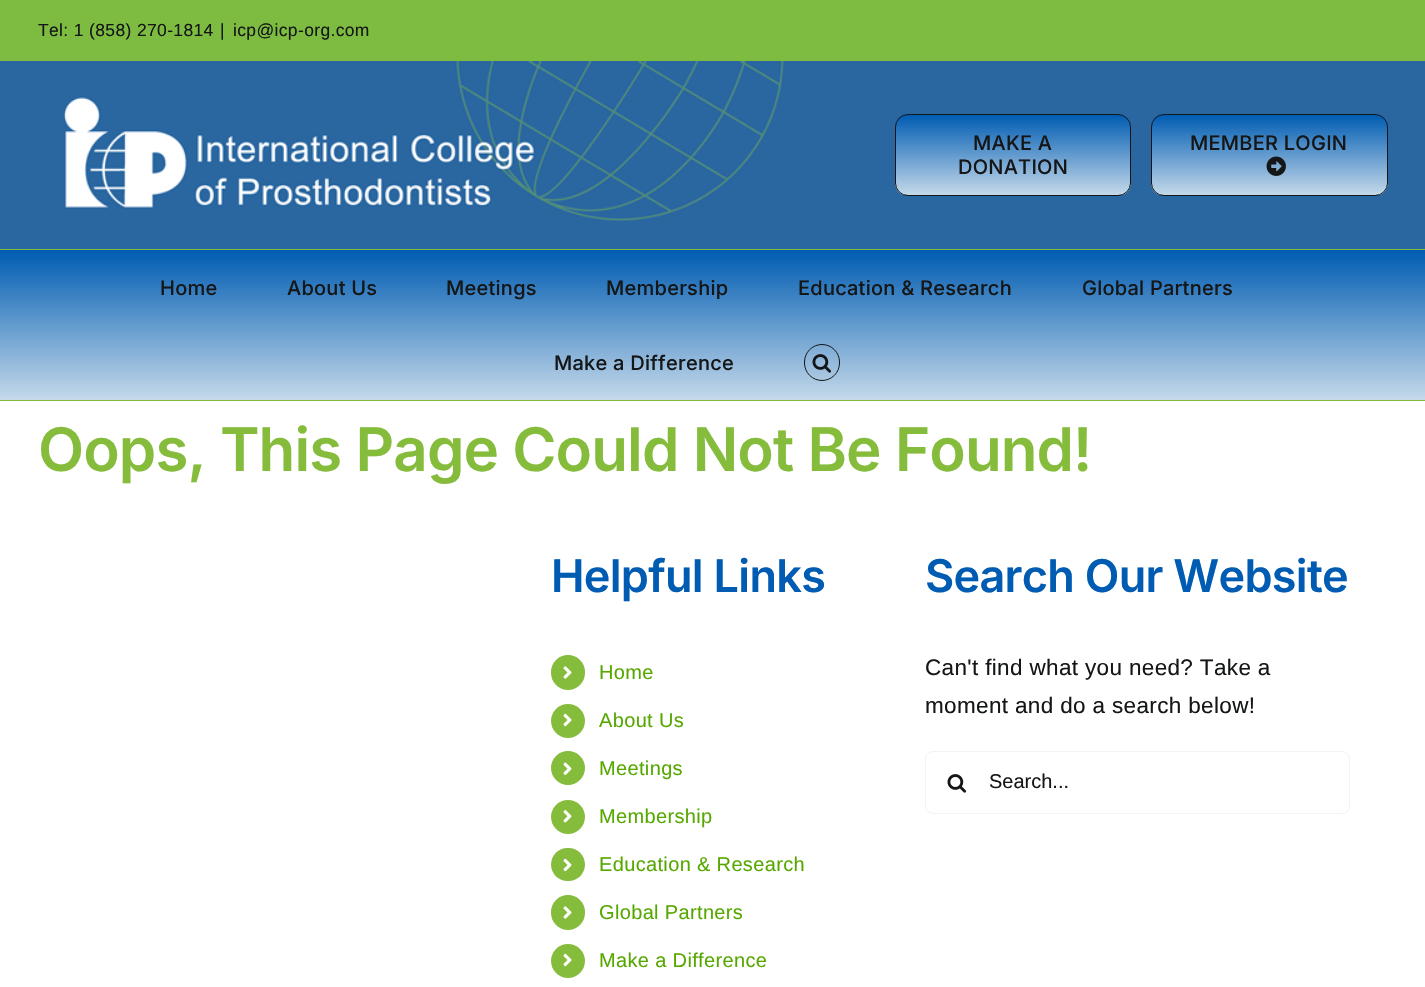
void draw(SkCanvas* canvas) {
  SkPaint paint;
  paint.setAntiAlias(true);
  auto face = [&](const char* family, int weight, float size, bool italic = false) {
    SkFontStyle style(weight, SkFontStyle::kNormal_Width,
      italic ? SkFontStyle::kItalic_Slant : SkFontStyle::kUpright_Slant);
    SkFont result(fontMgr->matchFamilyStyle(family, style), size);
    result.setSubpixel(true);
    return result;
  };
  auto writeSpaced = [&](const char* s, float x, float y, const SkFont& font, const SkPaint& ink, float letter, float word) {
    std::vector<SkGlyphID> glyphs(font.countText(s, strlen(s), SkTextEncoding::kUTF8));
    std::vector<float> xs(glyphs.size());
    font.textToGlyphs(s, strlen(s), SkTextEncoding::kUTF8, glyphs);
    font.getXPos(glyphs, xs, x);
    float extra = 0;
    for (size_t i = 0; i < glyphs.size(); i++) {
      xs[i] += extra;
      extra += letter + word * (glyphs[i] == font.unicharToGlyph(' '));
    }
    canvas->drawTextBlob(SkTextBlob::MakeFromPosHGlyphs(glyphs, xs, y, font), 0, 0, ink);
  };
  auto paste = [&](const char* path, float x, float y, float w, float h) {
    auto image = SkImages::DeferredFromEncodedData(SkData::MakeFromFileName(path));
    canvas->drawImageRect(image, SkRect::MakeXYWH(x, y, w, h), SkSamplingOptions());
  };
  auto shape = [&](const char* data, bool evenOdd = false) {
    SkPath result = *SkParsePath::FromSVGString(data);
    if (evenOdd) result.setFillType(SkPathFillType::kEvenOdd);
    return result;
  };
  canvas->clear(0xffffffff);
  {
    const struct { float x, y, w, h; SkColor color; } items[] = {
      {0, 0, 1425, 61, 0xff7dbc41},
      {0, 61, 1425, 188, 0xff2a67a1},
      {0, 249, 1425, 1, 0xff7dbc41},
    };
    for (auto [x, y, w, h, color] : items) {
      paint.setColor(color);
      canvas->drawRect(SkRect::MakeXYWH(x, y, w, h), paint);
    }
  }
  paste("img/1.png", 64, 61, 720, 160);
  canvas->save();
  canvas->clipPath(shape("M908 114H1118C1125 114 1131 120 1131 127V183C1131 190 1125 196 1118 196H908C901 196 895 190 895 183V127C895 120 901 114 908 114Z"), true);
  {
    const SkColor colors[] = {0xff005cb2, 0xffc5d9ea};
    const float stops[] = {0, 1};
    const SkPoint ends[] = {{1013, 115}, {1013, 195}};
    paint.setShader(SkGradientShader::MakeLinear(ends, colors, stops, 2, SkTileMode::kClamp));
    paint.setAlpha(255);
  }
  canvas->drawRect(SkRect::MakeXYWH(895, 115, 236, 80), paint);
  canvas->restore();
  paint.setStroke(true);
  paint.setStrokeWidth(1);
  paint.setShader(nullptr);
  paint.setColor(0xff141617);
  canvas->drawRoundRect(SkRect::MakeXYWH(895.5f, 114.5f, 235, 81), 12.5f, 12.5f, paint);
  canvas->save();
  canvas->clipPath(shape("M1164 114H1375C1382 114 1388 120 1388 127V183C1388 190 1382 196 1375 196H1164C1157 196 1151 190 1151 183V127C1151 120 1157 114 1164 114Z"), true);
  paint.setStroke(false);
  {
    const SkColor colors[] = {0xff005cb2, 0xffc5d9ea};
    const float stops[] = {0, 1};
    const SkPoint ends[] = {{1269, 115}, {1269, 195}};
    paint.setShader(SkGradientShader::MakeLinear(ends, colors, stops, 2, SkTileMode::kClamp));
    paint.setAlpha(255);
  }
  canvas->drawRect(SkRect::MakeXYWH(1151, 115, 237, 80), paint);
  canvas->restore();
  paint.setStroke(true);
  paint.setShader(nullptr);
  paint.setColor(0xff141617);
  canvas->drawRoundRect(SkRect::MakeXYWH(1151.5f, 114.5f, 236, 81), 12.5f, 12.5f, paint);
  paste("img/2.png", 1266, 156, 20, 20);
  paint.setStroke(false);
  {
    const SkColor colors[] = {0xff005cb2, 0xffc5d9ea};
    const float stops[] = {0, 1};
    const SkPoint ends[] = {{713, 250}, {713, 400}};
    paint.setShader(SkGradientShader::MakeLinear(ends, colors, stops, 2, SkTileMode::kClamp));
    paint.setAlpha(255);
  }
  canvas->drawRect(SkRect::MakeXYWH(0, 250, 1425, 150), paint);
  paint.setShader(nullptr);
  paint.setColor(0xff7dbc41);
  canvas->drawRect(SkRect::MakeXYWH(0, 400, 1425, 1), paint);
  paint.setStroke(true);
  paint.setColor(0xff141617);
  canvas->drawRoundRect(SkRect::MakeXYWH(804.5f, 344.5f, 35, 36), 17.5f, 17.5f, paint);
  paste("img/3.png", 812, 354, 20, 19);
  paint.setStroke(false);
  paint.setColor(0xff85bc3b);
  canvas->drawRoundRect(SkRect::MakeXYWH(551, 655, 34, 35), 17, 17, paint);
  paste("img/4.png", 563, 666, 9, 13);
  canvas->drawCircle(568, 721, 17, paint);
  paste("img/5.png", 563, 713, 9, 14);
  canvas->drawCircle(568, 768, 17, paint);
  paste("img/6.png", 563, 762, 9, 13);
  canvas->drawCircle(568, 817, 17, paint);
  paste("img/7.png", 563, 810, 9, 13);
  canvas->drawRoundRect(SkRect::MakeXYWH(551, 848, 34, 33), 16.5f, 16.5f, paint);
  paste("img/5.png", 563, 858, 9, 14);
  canvas->drawRoundRect(SkRect::MakeXYWH(551, 895, 34, 35), 17, 17, paint);
  paste("img/4.png", 563, 906, 9, 13);
  canvas->drawCircle(568, 961, 17, paint);
  paste("img/5.png", 563, 953, 9, 14);
  paint.setStroke(true);
  paint.setColor(0xfff2f3f5);
  canvas->drawRoundRect(SkRect::MakeXYWH(925.5f, 751.5f, 424, 62), 7.5f, 7.5f, paint);
  paste("img/8.png", 947, 774, 20, 19);
  auto f0 = face("Liberation Sans", 400, 17.5f);
  paint.setStroke(false);
  paint.setColor(0xff141617);
  {
    const struct { const char* s; float x, y; } items[] = {
      {"Tel: 1 (858) 270-1814", 38, 36},
      {"|", 220, 36},
      {"icp@icp-org.com", 233, 36},
    };
    for (auto [s, x, y] : items) {
      writeSpaced(s, x, y, f0, paint, 0.35f, 0);
    }
  }
  auto f1 = face("Inter", 500, 20);
  {
    const struct { const char* s; float x, y; } items[] = {
      {"MAKE A", 973, 150},
      {"DONATION", 958, 174},
      {"MEMBER LOGIN", 1190, 150},
      {"Home", 160, 295},
      {"About Us", 287, 295},
      {"Meetings", 446, 295},
      {"Membership", 606, 295},
      {"Education & Research", 798, 295},
      {"Global Partners", 1082, 295},
      {"Make a Difference", 554, 370},
    };
    for (auto [s, x, y] : items) {
      writeSpaced(s, x, y, f1, paint, 0.25f, 0);
    }
  }
  auto f2 = face("Inter", 600, 60);
  paint.setColor(0xff85bc3b);
  writeSpaced("Oops, This Page Could Not Be Found!", 38, 471, f2, paint, -0.9f, 0);
  auto f3 = face("Inter", 600, 45);
  paint.setColor(0xff005cb2);
  writeSpaced("Helpful Links", 551, 592, f3, paint, -0.7f, 0);
  auto f4 = face("Liberation Sans", 400, 20);
  paint.setColor(0xff56a800);
  {
    const struct { const char* s; float x, y; } items[] = {
      {"Home", 599, 679},
      {"About Us", 599, 727},
      {"Meetings", 599, 775},
      {"Membership", 599, 823},
      {"Education & Research", 599, 871},
      {"Global Partners", 599, 919},
      {"Make a Difference", 599, 967},
    };
    for (auto [s, x, y] : items) {
      writeSpaced(s, x, y, f4, paint, 0.35f, 0);
    }
  }
  paint.setColor(0xff005cb2);
  writeSpaced("Search Our Website", 925, 592, f3, paint, -0.7f, 0);
  auto f5 = face("Liberation Sans", 400, 22.5f);
  paint.setColor(0xff141617);
  writeSpaced("Can't find what you need? Take a", 925, 675, f5, paint, 0.35f, 0);
  writeSpaced("moment and do a search below!", 925, 713, f5, paint, 0.35f, 0);
  canvas->drawString("Search...", 989, 788, f4, paint);
}
